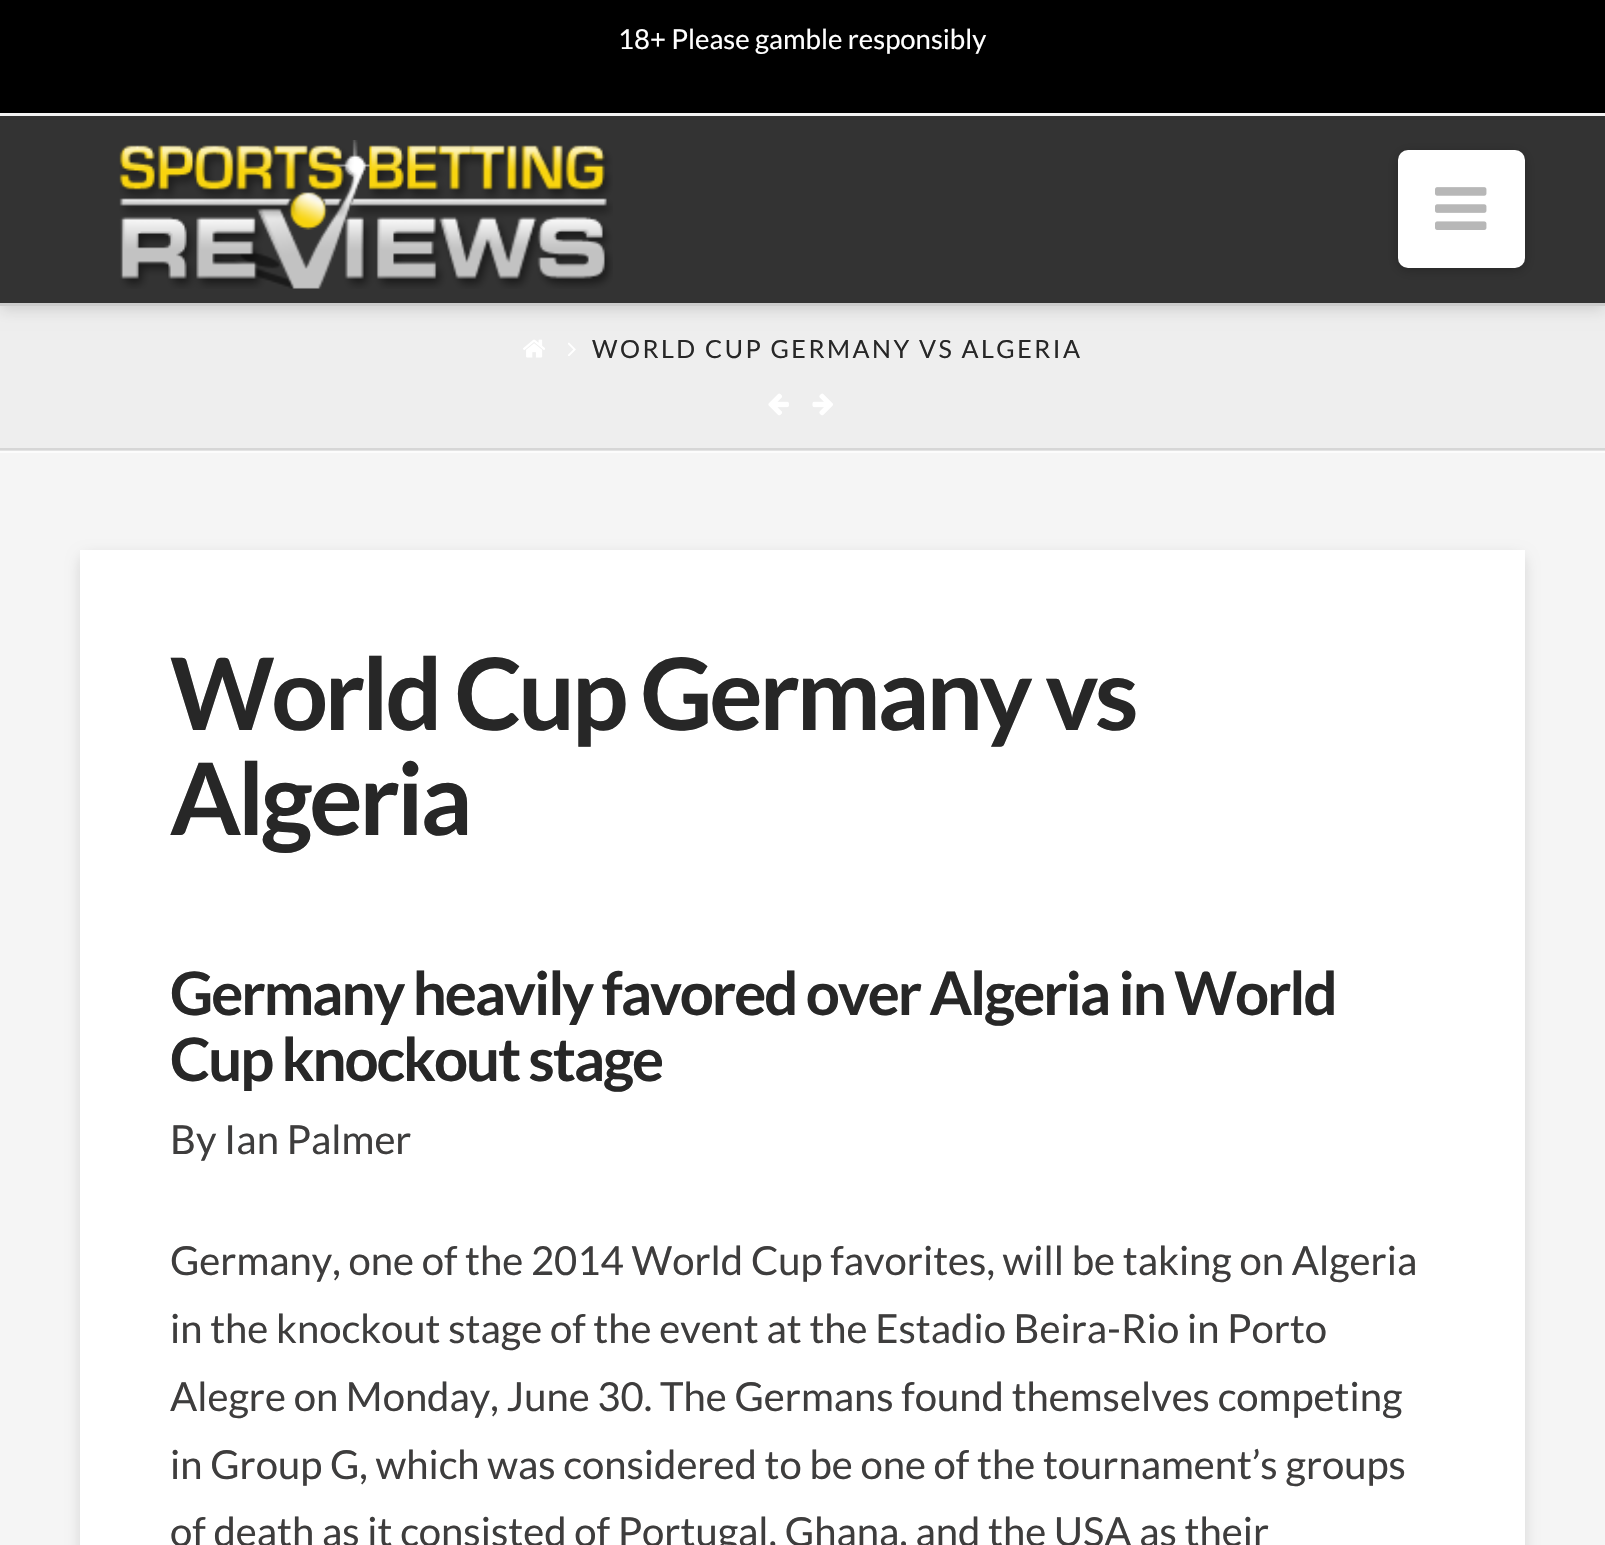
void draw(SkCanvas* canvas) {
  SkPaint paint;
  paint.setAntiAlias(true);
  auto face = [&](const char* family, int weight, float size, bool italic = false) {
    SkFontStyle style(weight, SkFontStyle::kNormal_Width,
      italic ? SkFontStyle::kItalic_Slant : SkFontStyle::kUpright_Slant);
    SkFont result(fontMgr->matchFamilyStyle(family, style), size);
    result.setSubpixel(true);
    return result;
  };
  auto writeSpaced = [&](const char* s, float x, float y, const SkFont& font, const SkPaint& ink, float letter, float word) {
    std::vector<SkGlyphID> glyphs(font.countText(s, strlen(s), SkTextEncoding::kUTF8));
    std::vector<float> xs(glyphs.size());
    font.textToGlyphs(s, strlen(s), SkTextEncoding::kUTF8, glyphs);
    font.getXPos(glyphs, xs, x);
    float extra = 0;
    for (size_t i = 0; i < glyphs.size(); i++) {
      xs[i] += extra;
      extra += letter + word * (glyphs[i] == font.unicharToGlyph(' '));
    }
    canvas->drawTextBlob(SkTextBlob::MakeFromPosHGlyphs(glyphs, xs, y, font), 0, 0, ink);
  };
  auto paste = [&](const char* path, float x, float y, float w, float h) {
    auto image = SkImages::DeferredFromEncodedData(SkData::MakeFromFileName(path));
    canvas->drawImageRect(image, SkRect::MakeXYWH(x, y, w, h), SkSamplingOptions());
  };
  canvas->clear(0xfff5f5f5);
  paint.setColor(0xffeeeeee);
  canvas->drawRect(SkRect::MakeXYWH(0, 306, 1605, 142), paint);
  paint.setColor(0x21000000);
  paint.setMaskFilter(SkMaskFilter::MakeBlur(kNormal_SkBlurStyle, 7));
  canvas->drawRect(SkRect::MakeXYWH(0, 120, 1605, 190), paint);
  paint.setMaskFilter(nullptr);
  {
    const struct { float x, y, w, h; SkColor color; } items[] = {
      {0, 0, 1605, 113, 0xff000000},
      {0, 113, 1605, 3, 0xfff2f2f2},
      {0, 116, 1605, 187, 0xff333333},
      {0, 303, 1605, 3, 0xffcccccc},
    };
    for (auto [x, y, w, h, color] : items) {
      paint.setColor(color);
      canvas->drawRect(SkRect::MakeXYWH(x, y, w, h), paint);
    }
  }
  paste("img/1.png", 119, 140, 494, 149);
  paint.setColor(0x40000000);
  paint.setMaskFilter(SkMaskFilter::MakeBlur(kNormal_SkBlurStyle, 6));
  canvas->drawRoundRect(SkRect::MakeXYWH(1398, 153, 127, 117), 10, 10, paint);
  paint.setMaskFilter(nullptr);
  paint.setColor(0xffffffff);
  canvas->drawRoundRect(SkRect::MakeXYWH(1398, 150, 127, 118), 10, 10, paint);
  paste("img/2.png", 1435, 187, 52, 43);
  {
    const struct { float x, y, w, h; SkColor color; } items[] = {
      {0, 451, 1605, 2, 0xfffcfcfc},
      {0, 450, 1605, 1, 0xffe3e3e3},
      {0, 448, 1605, 2, 0xffd6d6d6},
    };
    for (auto [x, y, w, h, color] : items) {
      paint.setColor(color);
      canvas->drawRect(SkRect::MakeXYWH(x, y, w, h), paint);
    }
  }
  paste("img/3.png", 523, 339, 22, 19);
  paste("img/4.png", 568, 342, 8, 14);
  paste("img/5.png", 768, 393, 21, 23);
  paste("img/6.png", 812, 393, 21, 23);
  paint.setColor(0x21000000);
  paint.setMaskFilter(SkMaskFilter::MakeBlur(kNormal_SkBlurStyle, 7));
  canvas->drawRoundRect(SkRect::MakeXYWH(80, 555, 1445, 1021), 10, 10, paint);
  paint.setMaskFilter(nullptr);
  paint.setColor(0xffffffff);
  canvas->drawRect(SkRect::MakeXYWH(80, 550, 1445, 995), paint);
  auto f0 = face("Lato", 400, 27.5f);
  canvas->drawString("18+ Please gamble responsibly", 618, 49, f0, paint);
  auto f1 = face("Lato", 400, 25);
  paint.setColor(0xff272727);
  writeSpaced("WORLD CUP GERMANY VS ALGERIA", 592, 358, f1, paint, 2.5f, 0);
  auto f2 = face("Lato", 700, 100);
  writeSpaced("World Cup Germany vs", 170, 730, f2, paint, -3.5f, 0);
  writeSpaced("Algeria", 170, 835, f2, paint, -3.5f, 0);
  auto f3 = face("Lato", 700, 60);
  writeSpaced("Germany heavily favored over Algeria in World", 170, 1015, f3, paint, -2.1f, 0);
  writeSpaced("Cup knockout stage", 170, 1081, f3, paint, -2.1f, 0);
  auto f4 = face("Lato", 400, 40);
  paint.setColor(0xff3e3d3d);
  {
    const struct { const char* s; float x, y; } items[] = {
      {"By Ian Palmer", 170, 1154},
      {"Germany, one of the 2014 World Cup favorites, will be taking on Algeria", 170, 1275},
      {"in the knockout stage of the event at the Estadio Beira-Rio in Porto", 170, 1343},
      {"Alegre on Monday, June 30. The Germans found themselves competing", 170, 1411},
      {"in Group G, which was considered to be one of the tournament’s groups", 170, 1479},
      {"of death as it consisted of Portugal, Ghana, and the USA as their", 170, 1546},
    };
    for (auto [s, x, y] : items) {
      canvas->drawString(s, x, y, f4, paint);
    }
  }
}
